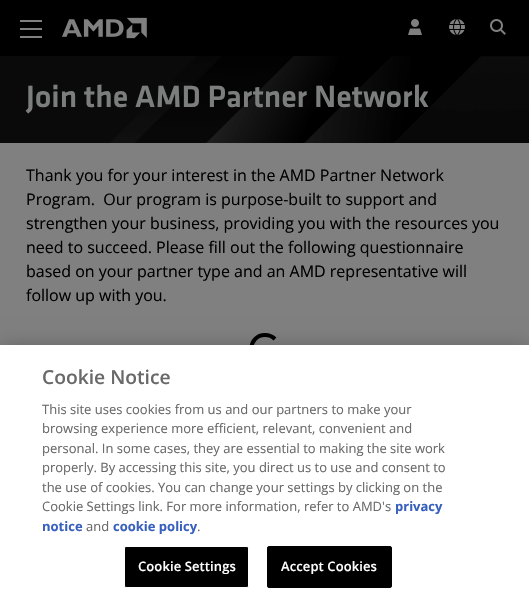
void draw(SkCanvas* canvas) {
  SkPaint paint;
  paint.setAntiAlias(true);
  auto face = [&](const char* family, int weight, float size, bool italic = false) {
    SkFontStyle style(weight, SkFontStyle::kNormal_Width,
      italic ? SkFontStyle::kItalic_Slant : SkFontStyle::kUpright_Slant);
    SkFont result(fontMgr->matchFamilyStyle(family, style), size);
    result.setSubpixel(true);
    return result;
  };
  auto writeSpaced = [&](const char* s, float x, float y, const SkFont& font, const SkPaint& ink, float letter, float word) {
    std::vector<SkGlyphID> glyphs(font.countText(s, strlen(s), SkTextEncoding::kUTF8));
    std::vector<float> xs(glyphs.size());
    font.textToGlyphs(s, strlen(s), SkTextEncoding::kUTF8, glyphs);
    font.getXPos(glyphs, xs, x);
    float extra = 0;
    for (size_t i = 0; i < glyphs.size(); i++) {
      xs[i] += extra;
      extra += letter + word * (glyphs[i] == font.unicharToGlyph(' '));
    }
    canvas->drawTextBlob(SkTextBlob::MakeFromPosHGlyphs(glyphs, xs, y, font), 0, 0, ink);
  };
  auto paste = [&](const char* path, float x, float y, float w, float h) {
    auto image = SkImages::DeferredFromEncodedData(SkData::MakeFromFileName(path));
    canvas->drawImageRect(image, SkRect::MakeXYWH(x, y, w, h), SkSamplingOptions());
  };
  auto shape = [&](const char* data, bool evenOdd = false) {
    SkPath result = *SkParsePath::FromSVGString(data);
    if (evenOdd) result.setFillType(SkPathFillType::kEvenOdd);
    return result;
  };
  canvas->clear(0xff808080);
  {
    const struct { float x, y, w, h; SkColor color; } items[] = {
      {0, 0, 529, 56, 0xff000000},
      {20, 20, 22, 2, 0xff808080},
      {20, 28, 22, 2, 0xff808080},
      {20, 36, 22, 2, 0xff808080},
    };
    for (auto [x, y, w, h, color] : items) {
      paint.setColor(color);
      canvas->drawRect(SkRect::MakeXYWH(x, y, w, h), paint);
    }
  }
  paste("img/1.png", 62, 17, 85, 22);
  paste("img/2.png", 408, 19, 14, 16);
  paste("img/3.png", 449, 19, 16, 16);
  paste("img/4.png", 490, 19, 16, 16);
  paste("img/5.png", 0, 56, 529, 87);
  paint.setStroke(true);
  paint.setStrokeWidth(4);
  paint.setColor(0xff000000);
  canvas->drawPath(shape("M275 359C271.5 362 267 363.5 262.5 362.5C246 359.5 248.5 335 265 335C268.5 335 272.5 336.5 275 339"), paint);
  paint.setStroke(false);
  paint.setColor(0x33000000);
  paint.setMaskFilter(SkMaskFilter::MakeBlur(kNormal_SkBlurStyle, 9));
  canvas->drawRect(SkRect::MakeXYWH(0, 345, 529, 259), paint);
  paint.setMaskFilter(nullptr);
  paint.setColor(0xffffffff);
  canvas->drawRect(SkRect::MakeXYWH(0, 345, 529, 259), paint);
  paint.setColor(0xff000000);
  canvas->drawRoundRect(SkRect::MakeXYWH(124.5f, 546.5f, 124, 41), 1.5f, 1.5f, paint);
  paint.setStroke(true);
  paint.setStrokeWidth(1);
  paint.setColor(0xffffffff);
  canvas->drawRoundRect(SkRect::MakeXYWH(124.5f, 546.5f, 124, 41), 1.5f, 1.5f, paint);
  paint.setStroke(false);
  paint.setColor(0xff000000);
  canvas->drawRoundRect(SkRect::MakeXYWH(267.5f, 546.5f, 124, 41), 1.5f, 1.5f, paint);
  paint.setStroke(true);
  canvas->drawRoundRect(SkRect::MakeXYWH(267.5f, 546.5f, 124, 41), 1.5f, 1.5f, paint);
  auto f0 = face("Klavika", 500, 32);
  paint.setStroke(false);
  paint.setColor(0xff7c7d7d);
  canvas->drawString("Join the AMD Partner Network", 26, 107, f0, paint);
  auto f1 = face("Open Sans", 400, 16);
  paint.setColor(0xff000000);
  {
    const struct { const char* s; float x, y; } items[] = {
      {"Thank you for your interest in the AMD Partner Network", 26, 181},
      {"Program.  Our program is purpose-built to support and", 26, 205},
      {"strengthen your business, providing you with the resources you", 26, 229},
      {"need to succeed. Please fill out the following questionnaire", 26, 253},
      {"based on your partner type and an AMD representative will", 26, 277},
      {"follow up with you.", 26, 301},
    };
    for (auto [s, x, y] : items) {
      canvas->drawString(s, x, y, f1, paint);
    }
  }
  auto f2 = face("Open Sans", 600, 19.25f);
  paint.setColor(0xff696969);
  canvas->drawString("Cookie Notice", 42, 384, f2, paint);
  auto f3 = face("Open Sans", 400, 13);
  {
    const struct { const char* s; float x, y; } items[] = {
      {"This site uses cookies from us and our partners to make your", 42, 414},
      {"browsing experience more efficient, relevant, convenient and", 42, 433},
      {"personal. In some cases, they are essential to making the site work", 42, 453},
      {"properly. By accessing this site, you direct us to use and consent to", 42, 472},
      {"the use of cookies. You can change your settings by clicking on the", 42, 492},
      {"Cookie Settings link. For more information, refer to AMD's", 42, 511},
    };
    for (auto [s, x, y] : items) {
      canvas->drawString(s, x, y, f3, paint);
    }
  }
  auto f4 = face("Open Sans", 700, 13);
  paint.setColor(0xff3860be);
  canvas->drawString("privacy", 395, 511, f4, paint);
  canvas->drawString("notice", 42, 531, f4, paint);
  paint.setColor(0xff696969);
  canvas->drawString("and", 86, 531, f3, paint);
  paint.setColor(0xff3860be);
  canvas->drawString("cookie policy", 113, 531, f4, paint);
  paint.setColor(0xff696969);
  canvas->drawString(".", 197, 531, f3, paint);
  auto f5 = face("Open Sans", 600, 13);
  paint.setColor(0xffffffff);
  writeSpaced("Cookie Settings", 138, 571, f5, paint, 0.1f, 0);
  writeSpaced("Accept Cookies", 281, 571, f5, paint, 0.1f, 0);
}
